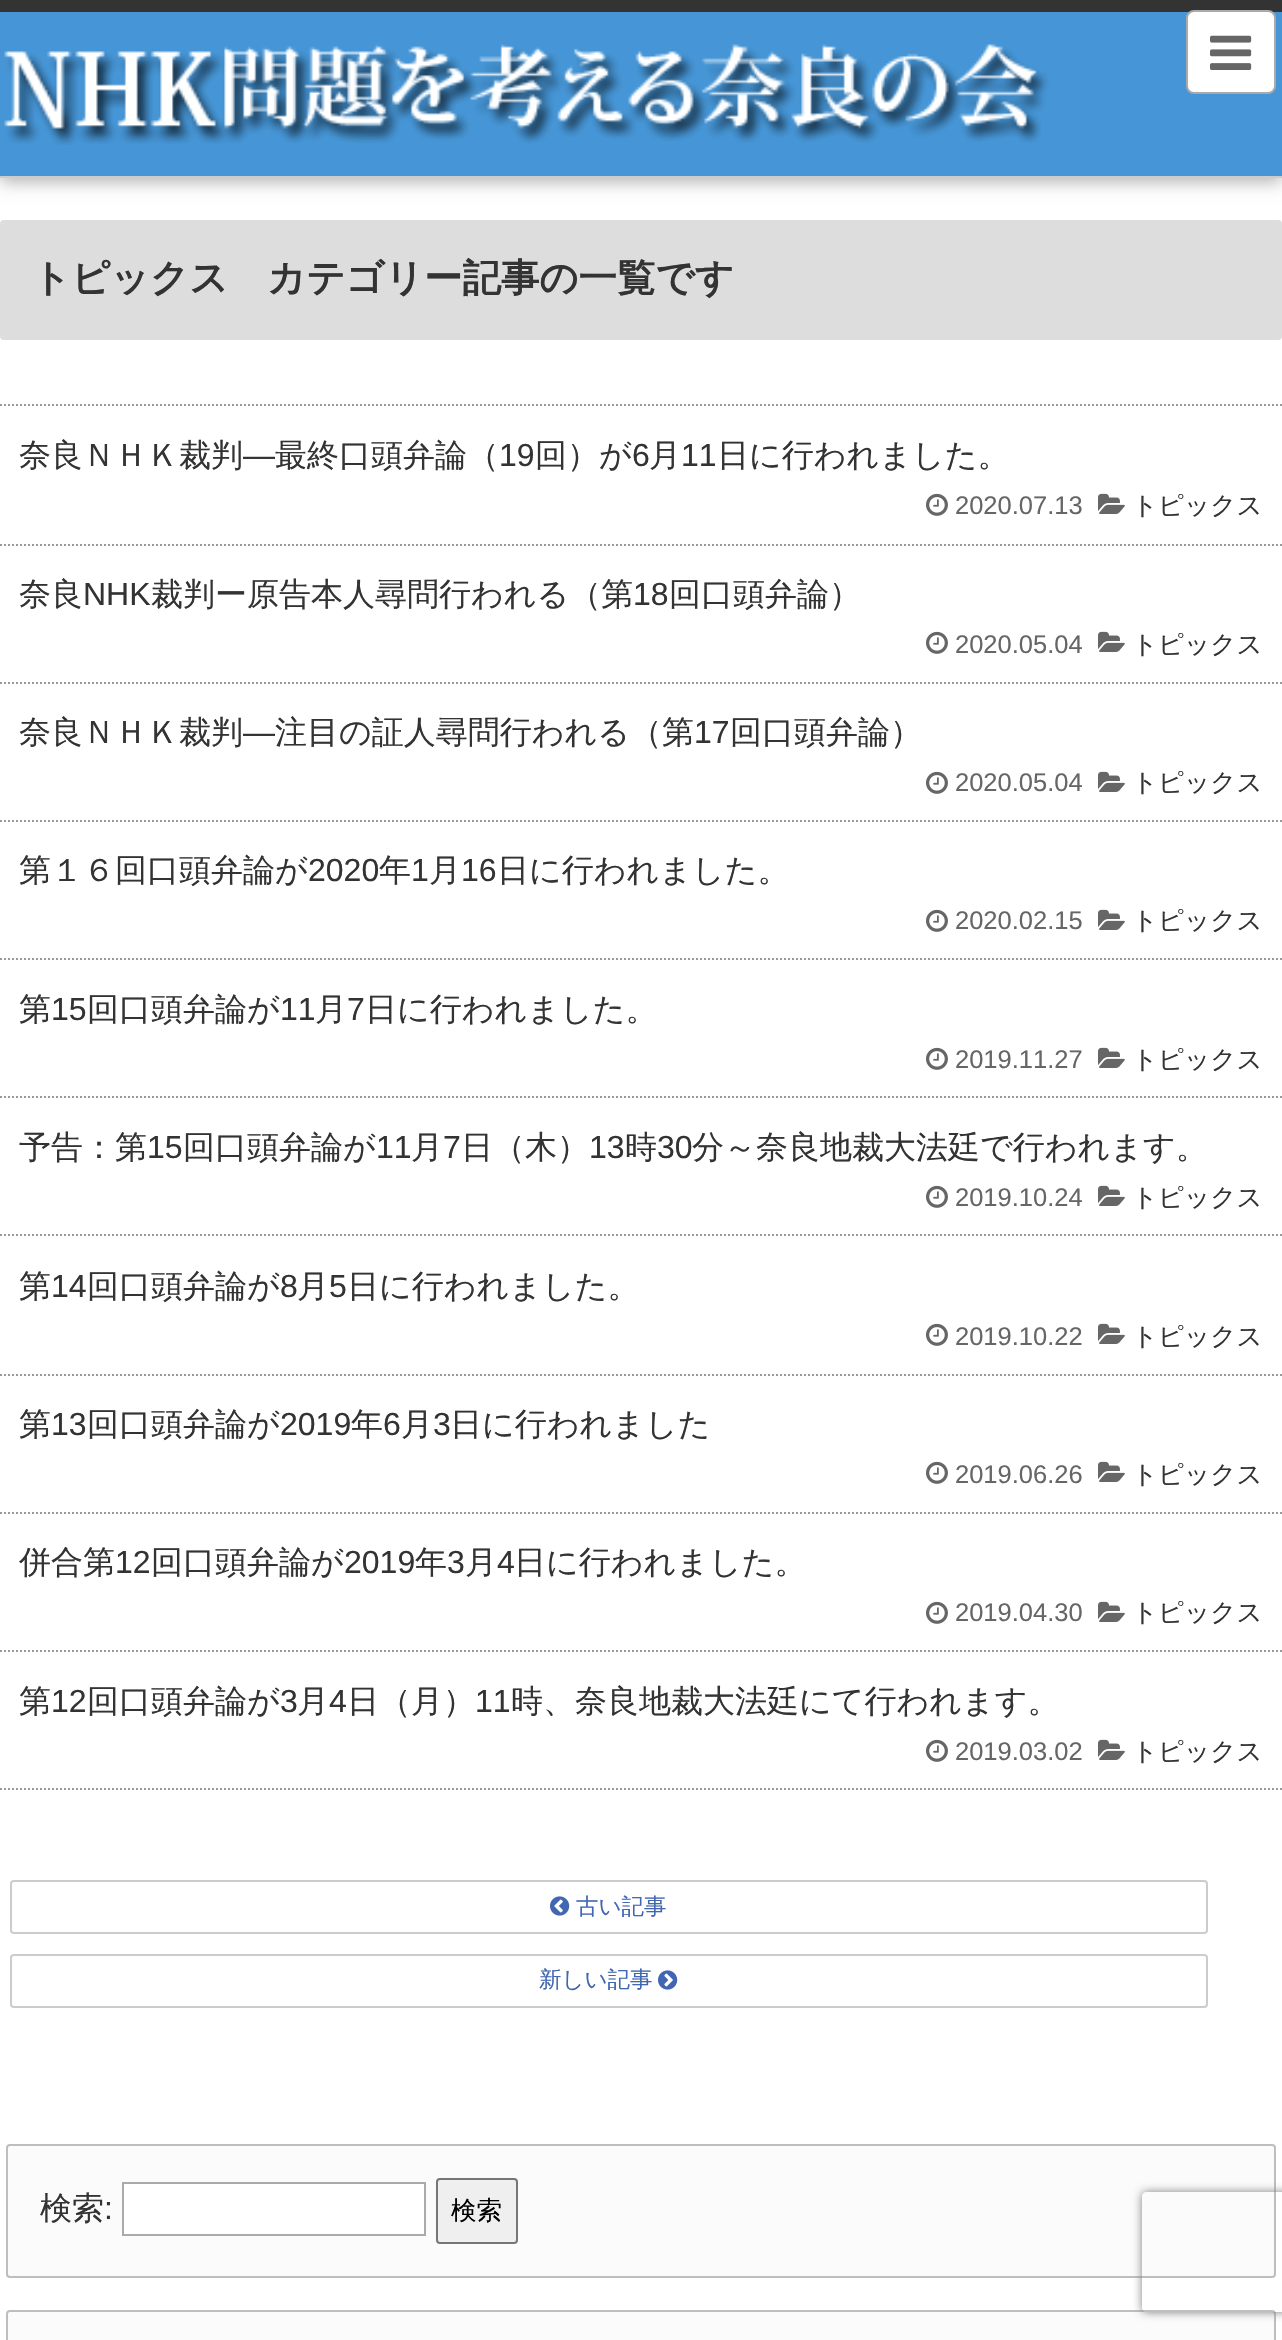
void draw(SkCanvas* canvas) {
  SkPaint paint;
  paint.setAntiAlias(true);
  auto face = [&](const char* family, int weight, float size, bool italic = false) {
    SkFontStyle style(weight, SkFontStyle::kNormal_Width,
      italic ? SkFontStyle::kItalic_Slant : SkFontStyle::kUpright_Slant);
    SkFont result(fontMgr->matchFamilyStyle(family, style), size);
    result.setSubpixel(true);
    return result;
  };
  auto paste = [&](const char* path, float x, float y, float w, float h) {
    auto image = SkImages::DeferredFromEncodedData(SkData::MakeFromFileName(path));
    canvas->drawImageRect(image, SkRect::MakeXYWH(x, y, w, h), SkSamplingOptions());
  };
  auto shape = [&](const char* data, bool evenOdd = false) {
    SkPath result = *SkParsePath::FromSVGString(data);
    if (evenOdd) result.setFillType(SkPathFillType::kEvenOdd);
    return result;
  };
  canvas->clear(0xffffffff);
  paint.setColor(0x4d000000);
  paint.setMaskFilter(SkMaskFilter::MakeBlur(kNormal_SkBlurStyle, 8));
  canvas->drawRect(SkRect::MakeXYWH(0, 4, 1282, 178), paint);
  paint.setMaskFilter(nullptr);
  paint.setColor(0xff4696d7);
  canvas->drawRect(SkRect::MakeXYWH(0, 12, 1282, 164), paint);
  paint.setColor(0xff333333);
  canvas->drawRect(SkRect::MakeXYWH(0, 0, 1282, 12), paint);
  paste("img/1.png", 4, 44, 1045, 101);
  paint.setColor(0xffffffff);
  canvas->drawRoundRect(SkRect::MakeXYWH(1187, 11, 88, 82), 7, 7, paint);
  paint.setStroke(true);
  paint.setStrokeWidth(2);
  paint.setColor(0xffaaaaaa);
  canvas->drawRoundRect(SkRect::MakeXYWH(1187, 11, 88, 82), 7, 7, paint);
  paste("img/2.png", 1210, 35, 42, 35);
  paint.setStroke(false);
  paint.setColor(0xffcccccc);
  canvas->drawRect(SkRect::MakeXYWH(0, 176, 1282, 2), paint);
  paint.setColor(0xffdddddd);
  canvas->drawRoundRect(SkRect::MakeXYWH(0, 220, 1282, 120), 4, 4, paint);
  paint.setStroke(true);
  paint.setColor(0xff999999);
  paint.setPathEffect(SkDashPathEffect::Make({{2, 2}}, 0));
  canvas->drawPath(shape("M0 405H1282"), paint);
  paint.setPathEffect(nullptr);
  paint.setPathEffect(SkDashPathEffect::Make({{2, 2}}, 0));
  canvas->drawPath(shape("M0 545H1282"), paint);
  paint.setPathEffect(nullptr);
  paste("img/3.png", 926, 493, 22, 23);
  paste("img/4.png", 1098, 493, 27, 21);
  paint.setPathEffect(SkDashPathEffect::Make({{2, 2}}, 0));
  canvas->drawPath(shape("M0 683H1282"), paint);
  paint.setPathEffect(nullptr);
  paste("img/3.png", 926, 631, 22, 23);
  paste("img/4.png", 1098, 631, 27, 21);
  paint.setPathEffect(SkDashPathEffect::Make({{2, 2}}, 0));
  canvas->drawPath(shape("M0 821H1282"), paint);
  paint.setPathEffect(nullptr);
  paste("img/3.png", 926, 771, 22, 23);
  paste("img/4.png", 1098, 771, 27, 21);
  paint.setPathEffect(SkDashPathEffect::Make({{2, 2}}, 0));
  canvas->drawPath(shape("M0 959H1282"), paint);
  paint.setPathEffect(nullptr);
  paste("img/3.png", 926, 909, 22, 23);
  paste("img/4.png", 1098, 909, 27, 21);
  paint.setPathEffect(SkDashPathEffect::Make({{2, 2}}, 0));
  canvas->drawPath(shape("M0 1097H1282"), paint);
  paint.setPathEffect(nullptr);
  paste("img/3.png", 926, 1047, 22, 23);
  paste("img/4.png", 1098, 1047, 27, 21);
  paint.setPathEffect(SkDashPathEffect::Make({{2, 2}}, 0));
  canvas->drawPath(shape("M0 1235H1282"), paint);
  paint.setPathEffect(nullptr);
  paste("img/3.png", 926, 1185, 22, 23);
  paste("img/4.png", 1098, 1185, 27, 21);
  paint.setPathEffect(SkDashPathEffect::Make({{2, 2}}, 0));
  canvas->drawPath(shape("M0 1375H1282"), paint);
  paint.setPathEffect(nullptr);
  paste("img/3.png", 926, 1323, 22, 23);
  paste("img/4.png", 1098, 1323, 27, 21);
  paint.setPathEffect(SkDashPathEffect::Make({{2, 2}}, 0));
  canvas->drawPath(shape("M0 1513H1282"), paint);
  paint.setPathEffect(nullptr);
  paste("img/3.png", 926, 1461, 22, 23);
  paste("img/4.png", 1098, 1461, 27, 21);
  paint.setPathEffect(SkDashPathEffect::Make({{2, 2}}, 0));
  canvas->drawPath(shape("M0 1651H1282"), paint);
  paint.setPathEffect(nullptr);
  paste("img/3.png", 926, 1601, 22, 23);
  paste("img/4.png", 1098, 1601, 27, 21);
  paint.setPathEffect(SkDashPathEffect::Make({{2, 2}}, 0));
  canvas->drawPath(shape("M0 1789H1282"), paint);
  paint.setPathEffect(nullptr);
  paste("img/3.png", 926, 1739, 22, 23);
  paste("img/4.png", 1098, 1739, 27, 21);
  paint.setColor(0xffcccccc);
  canvas->drawRoundRect(SkRect::MakeXYWH(11, 1881, 1196, 52), 3, 3, paint);
  paste("img/5.png", 550, 1896, 20, 20);
  canvas->drawRoundRect(SkRect::MakeXYWH(11, 1955, 1196, 52), 3, 3, paint);
  paste("img/6.png", 658, 1970, 20, 20);
  paint.setStroke(false);
  paint.setColor(0xfffbfbfb);
  canvas->drawRoundRect(SkRect::MakeXYWH(7, 2145, 1268, 132), 3, 3, paint);
  paint.setStroke(true);
  paint.setColor(0xffbebebe);
  canvas->drawRoundRect(SkRect::MakeXYWH(7, 2145, 1268, 132), 3, 3, paint);
  paint.setStroke(false);
  paint.setColor(0xffffffff);
  canvas->drawRect(SkRect::MakeXYWH(123, 2183, 302, 52), paint);
  paint.setStroke(true);
  paint.setColor(0xffaaaaaa);
  canvas->drawRect(SkRect::MakeXYWH(123, 2183, 302, 52), paint);
  paint.setStroke(false);
  paint.setColor(0xffefefef);
  canvas->drawRoundRect(SkRect::MakeXYWH(437, 2179, 80, 64), 3, 3, paint);
  paint.setStroke(true);
  paint.setColor(0xff767676);
  canvas->drawRoundRect(SkRect::MakeXYWH(437, 2179, 80, 64), 3, 3, paint);
  paint.setStroke(false);
  paint.setColor(0xfffbfbfb);
  canvas->drawRoundRect(SkRect::MakeXYWH(7, 2311, 1268, 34), 3, 3, paint);
  paint.setStroke(true);
  paint.setColor(0xffbebebe);
  canvas->drawRoundRect(SkRect::MakeXYWH(7, 2311, 1268, 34), 3, 3, paint);
  canvas->save();
  canvas->clipPath(shape("M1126 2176H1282V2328H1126ZM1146 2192H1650C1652 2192 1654 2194 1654 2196V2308C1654 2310 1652 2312 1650 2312H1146C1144 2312 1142 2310 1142 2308V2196C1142 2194 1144 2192 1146 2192Z", true), true);
  paint.setStroke(false);
  paint.setColor(0xff808080);
  paint.setMaskFilter(SkMaskFilter::MakeBlur(kNormal_SkBlurStyle, 5));
  canvas->drawRoundRect(SkRect::MakeXYWH(1142, 2192, 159, 120), 4, 4, paint);
  paint.setMaskFilter(nullptr);
  canvas->restore();
  auto f0 = face("WenQuanYi Zen Hei", 700, 38.4f);
  paint.setColor(0xff333333);
  canvas->drawString("トピックス　カテゴリー記事の一覧です", 32, 291, f0, paint);
  auto f1 = face("WenQuanYi Zen Hei", 500, 32);
  canvas->drawString("奈良ＮＨＫ裁判", 19, 466, f1, paint);
  auto f2 = face("Liberation Sans", 400, 32);
  canvas->drawString("―", 243, 466, f2, paint);
  canvas->drawString("最終口頭弁論（", 275, 466, f1, paint);
  canvas->drawString("19", 499, 466, f2, paint);
  canvas->drawString("回）が", 535, 466, f1, paint);
  canvas->drawString("6", 632, 466, f2, paint);
  canvas->drawString("月", 649, 466, f1, paint);
  canvas->drawString("11", 681, 466, f2, paint);
  canvas->drawString("日に行われました。", 717, 466, f1, paint);
  auto f3 = face("Liberation Sans", 400, 25.5f);
  paint.setColor(0xff666666);
  canvas->drawString("2020.07.13", 955, 514, f3, paint);
  auto f4 = face("WenQuanYi Zen Hei", 500, 25.5f);
  paint.setColor(0xff333333);
  canvas->drawString("トピックス", 1132, 514, f4, paint);
  canvas->drawString("奈良", 19, 605, f1, paint);
  canvas->drawString("NHK", 83, 605, f2, paint);
  canvas->drawString("裁判ー原告本人尋問行われる（第", 151, 605, f1, paint);
  canvas->drawString("18", 633, 605, f2, paint);
  canvas->drawString("回口頭弁論）", 669, 605, f1, paint);
  paint.setColor(0xff666666);
  canvas->drawString("2020.05.04", 955, 653, f3, paint);
  paint.setColor(0xff333333);
  canvas->drawString("トピックス", 1132, 653, f4, paint);
  canvas->drawString("奈良ＮＨＫ裁判", 19, 743, f1, paint);
  canvas->drawString("―", 243, 743, f2, paint);
  canvas->drawString("注目の証人尋問行われる（第", 275, 743, f1, paint);
  canvas->drawString("17", 694, 743, f2, paint);
  canvas->drawString("回口頭弁論）", 730, 743, f1, paint);
  paint.setColor(0xff666666);
  canvas->drawString("2020.05.04", 955, 791, f3, paint);
  paint.setColor(0xff333333);
  canvas->drawString("トピックス", 1132, 791, f4, paint);
  canvas->drawString("第１６回口頭弁論が", 19, 881, f1, paint);
  canvas->drawString("2020", 308, 881, f2, paint);
  canvas->drawString("年", 379, 881, f1, paint);
  canvas->drawString("1", 411, 881, f2, paint);
  canvas->drawString("月", 429, 881, f1, paint);
  canvas->drawString("16", 461, 881, f2, paint);
  canvas->drawString("日に行われました。", 497, 881, f1, paint);
  paint.setColor(0xff666666);
  canvas->drawString("2020.02.15", 955, 929, f3, paint);
  paint.setColor(0xff333333);
  canvas->drawString("トピックス", 1132, 929, f4, paint);
  canvas->drawString("第", 19, 1020, f1, paint);
  canvas->drawString("15", 51, 1020, f2, paint);
  canvas->drawString("回口頭弁論が", 87, 1020, f1, paint);
  canvas->drawString("11", 280, 1020, f2, paint);
  canvas->drawString("月", 315, 1020, f1, paint);
  canvas->drawString("7", 347, 1020, f2, paint);
  canvas->drawString("日に行われました。", 365, 1020, f1, paint);
  paint.setColor(0xff666666);
  canvas->drawString("2019.11.27", 955, 1068, f3, paint);
  paint.setColor(0xff333333);
  canvas->drawString("トピックス", 1132, 1068, f4, paint);
  canvas->drawString("予告：第", 19, 1158, f1, paint);
  canvas->drawString("15", 147, 1158, f2, paint);
  canvas->drawString("回口頭弁論が", 183, 1158, f1, paint);
  canvas->drawString("11", 376, 1158, f2, paint);
  canvas->drawString("月", 411, 1158, f1, paint);
  canvas->drawString("7", 443, 1158, f2, paint);
  canvas->drawString("日（木）", 461, 1158, f1, paint);
  canvas->drawString("13", 589, 1158, f2, paint);
  canvas->drawString("時", 625, 1158, f1, paint);
  canvas->drawString("30", 657, 1158, f2, paint);
  canvas->drawString("分～奈良地裁大法廷で行われます。", 692, 1158, f1, paint);
  paint.setColor(0xff666666);
  canvas->drawString("2019.10.24", 955, 1206, f3, paint);
  paint.setColor(0xff333333);
  canvas->drawString("トピックス", 1132, 1206, f4, paint);
  canvas->drawString("第", 19, 1297, f1, paint);
  canvas->drawString("14", 51, 1297, f2, paint);
  canvas->drawString("回口頭弁論が", 87, 1297, f1, paint);
  canvas->drawString("8", 280, 1297, f2, paint);
  canvas->drawString("月", 297, 1297, f1, paint);
  canvas->drawString("5", 329, 1297, f2, paint);
  canvas->drawString("日に行われました。", 347, 1297, f1, paint);
  paint.setColor(0xff666666);
  canvas->drawString("2019.10.22", 955, 1345, f3, paint);
  paint.setColor(0xff333333);
  canvas->drawString("トピックス", 1132, 1345, f4, paint);
  canvas->drawString("第", 19, 1435, f1, paint);
  canvas->drawString("13", 51, 1435, f2, paint);
  canvas->drawString("回口頭弁論が", 87, 1435, f1, paint);
  canvas->drawString("2019", 280, 1435, f2, paint);
  canvas->drawString("年", 351, 1435, f1, paint);
  canvas->drawString("6", 383, 1435, f2, paint);
  canvas->drawString("月", 401, 1435, f1, paint);
  canvas->drawString("3", 433, 1435, f2, paint);
  canvas->drawString("日に行われました", 450, 1435, f1, paint);
  paint.setColor(0xff666666);
  canvas->drawString("2019.06.26", 955, 1483, f3, paint);
  paint.setColor(0xff333333);
  canvas->drawString("トピックス", 1132, 1483, f4, paint);
  canvas->drawString("併合第", 19, 1573, f1, paint);
  canvas->drawString("12", 115, 1573, f2, paint);
  canvas->drawString("回口頭弁論が", 151, 1573, f1, paint);
  canvas->drawString("2019", 344, 1573, f2, paint);
  canvas->drawString("年", 415, 1573, f1, paint);
  canvas->drawString("3", 447, 1573, f2, paint);
  canvas->drawString("月", 465, 1573, f1, paint);
  canvas->drawString("4", 497, 1573, f2, paint);
  canvas->drawString("日に行われました。", 514, 1573, f1, paint);
  paint.setColor(0xff666666);
  canvas->drawString("2019.04.30", 955, 1621, f3, paint);
  paint.setColor(0xff333333);
  canvas->drawString("トピックス", 1132, 1621, f4, paint);
  canvas->drawString("第", 19, 1712, f1, paint);
  canvas->drawString("12", 51, 1712, f2, paint);
  canvas->drawString("回口頭弁論が", 87, 1712, f1, paint);
  canvas->drawString("3", 280, 1712, f2, paint);
  canvas->drawString("月", 297, 1712, f1, paint);
  canvas->drawString("4", 329, 1712, f2, paint);
  canvas->drawString("日（月）", 347, 1712, f1, paint);
  canvas->drawString("11", 475, 1712, f2, paint);
  canvas->drawString("時、奈良地裁大法廷にて行われます。", 511, 1712, f1, paint);
  paint.setColor(0xff666666);
  canvas->drawString("2019.03.02", 955, 1760, f3, paint);
  paint.setColor(0xff333333);
  canvas->drawString("トピックス", 1132, 1760, f4, paint);
  auto f5 = face("WenQuanYi Zen Hei", 500, 22.5f);
  paint.setColor(0xff4267b2);
  canvas->drawString("古い記事", 576, 1914, f5, paint);
  canvas->drawString("新しい記事", 539, 1987, f5, paint);
  paint.setColor(0xff333333);
  canvas->drawString("検索", 40, 2219, f1, paint);
  canvas->drawString(":", 104, 2219, f2, paint);
  paint.setColor(0xff000000);
  canvas->drawString("検索", 451, 2219, f4, paint);
}
